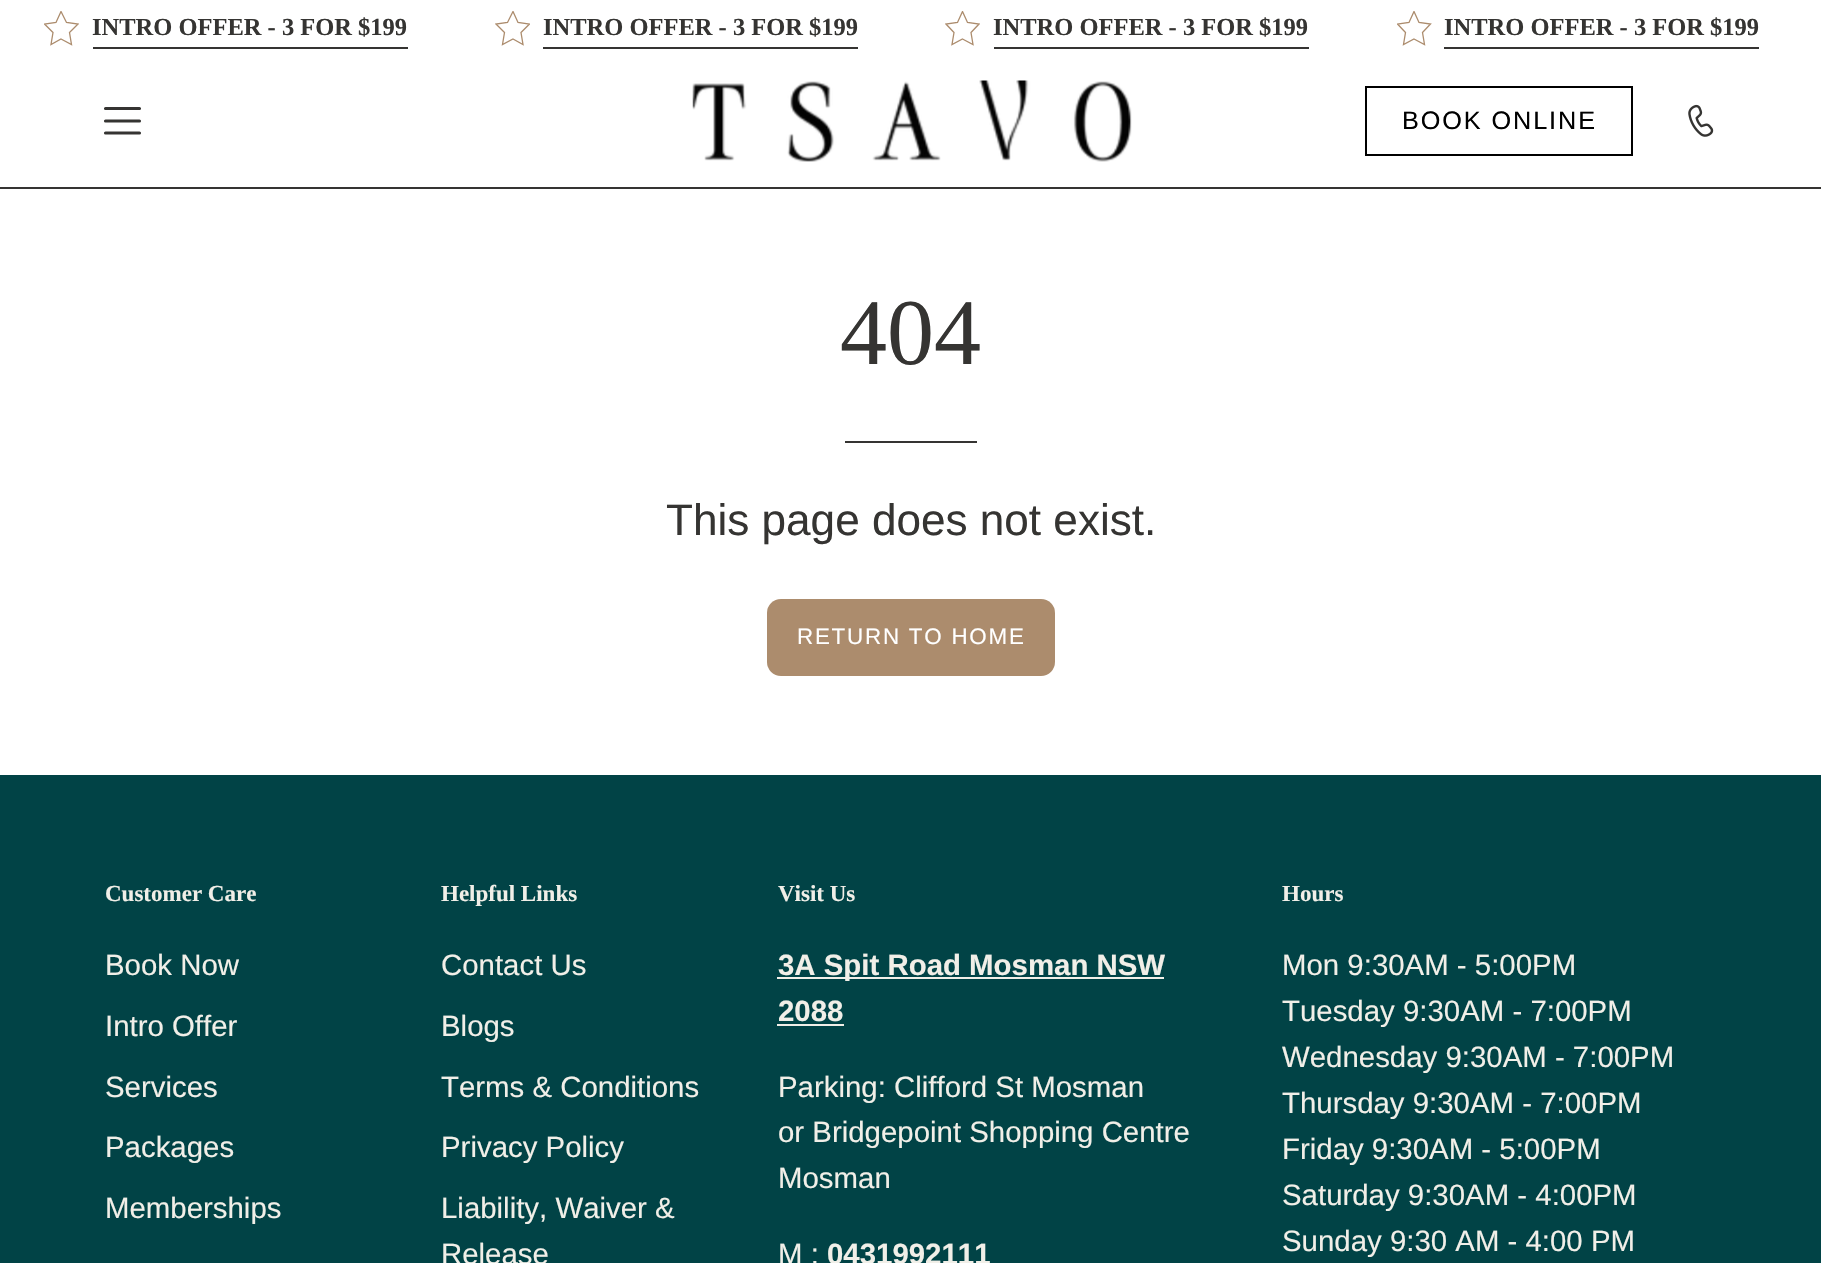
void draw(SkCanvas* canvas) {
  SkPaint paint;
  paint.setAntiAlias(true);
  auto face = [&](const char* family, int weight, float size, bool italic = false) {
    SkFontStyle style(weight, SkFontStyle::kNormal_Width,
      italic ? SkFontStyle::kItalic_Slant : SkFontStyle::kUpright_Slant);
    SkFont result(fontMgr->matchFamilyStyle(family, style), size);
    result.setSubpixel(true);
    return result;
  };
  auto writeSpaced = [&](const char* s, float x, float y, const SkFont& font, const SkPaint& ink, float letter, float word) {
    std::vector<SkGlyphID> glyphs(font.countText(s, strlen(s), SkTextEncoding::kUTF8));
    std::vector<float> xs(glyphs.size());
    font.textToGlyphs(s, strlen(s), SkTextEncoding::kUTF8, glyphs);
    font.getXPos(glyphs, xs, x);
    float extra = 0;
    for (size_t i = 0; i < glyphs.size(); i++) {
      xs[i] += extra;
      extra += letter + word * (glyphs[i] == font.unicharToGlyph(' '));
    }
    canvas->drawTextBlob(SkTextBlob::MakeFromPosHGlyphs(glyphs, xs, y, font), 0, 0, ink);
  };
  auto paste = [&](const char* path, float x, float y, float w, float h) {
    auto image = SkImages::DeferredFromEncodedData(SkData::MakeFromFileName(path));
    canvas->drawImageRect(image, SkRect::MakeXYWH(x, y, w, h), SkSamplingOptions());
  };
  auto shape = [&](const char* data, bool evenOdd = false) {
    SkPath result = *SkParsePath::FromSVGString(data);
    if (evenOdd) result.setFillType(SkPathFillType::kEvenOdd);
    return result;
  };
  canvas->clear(0xffffffff);
  canvas->save();
  canvas->clipRect(SkRect::MakeXYWH(44, 11, 35, 35));
  paint.setStroke(true);
  paint.setStrokeWidth(1.3f);
  paint.setColor(0xffac8c6d);
  canvas->drawPath(shape("M61 39L71.5 44.5L69.5 32.5L78 24L66.5 22.5L61 11.5L56 22.5L44.5 24L53 32.5L51 44.5Z"), paint);
  canvas->restore();
  paint.setStroke(false);
  paint.setColor(0xff353432);
  canvas->drawRect(SkRect::MakeXYWH(93, 47, 315, 2), paint);
  canvas->save();
  canvas->clipRect(SkRect::MakeXYWH(495, 11, 35, 35));
  paint.setStroke(true);
  paint.setColor(0xffac8c6d);
  canvas->drawPath(shape("M513 39L523 44.5L521 32.5L529.5 24L518 22.5L513 11.5L507.5 22.5L496 24L504.5 32.5L502.5 44.5Z"), paint);
  canvas->restore();
  paint.setStroke(false);
  paint.setColor(0xff353432);
  canvas->drawRect(SkRect::MakeXYWH(543, 47, 315, 2), paint);
  canvas->save();
  canvas->clipRect(SkRect::MakeXYWH(945, 11, 35, 35));
  paint.setStroke(true);
  paint.setColor(0xffac8c6d);
  canvas->drawPath(shape("M962.5 39L973 44.5L971 32.5L979 24L967.5 22.5L962.5 11.5L957.5 22.5L946 24L954 32.5L952 44.5Z"), paint);
  canvas->restore();
  paint.setStroke(false);
  paint.setColor(0xff353432);
  canvas->drawRect(SkRect::MakeXYWH(994, 47, 315, 2), paint);
  canvas->save();
  canvas->clipRect(SkRect::MakeXYWH(1397, 11, 35, 35));
  paint.setStroke(true);
  paint.setColor(0xffac8c6d);
  canvas->drawPath(shape("M1414 39L1424.5 44.5L1422.5 32.5L1430.5 24L1419 22.5L1414 11.5L1409 22.5L1397.5 24L1405.5 32.5L1403.5 44.5Z"), paint);
  canvas->restore();
  paint.setStroke(false);
  paint.setColor(0xff353432);
  canvas->drawRect(SkRect::MakeXYWH(1444, 47, 315, 2), paint);
  paint.setStroke(true);
  paint.setStrokeWidth(3.1f);
  paint.setStrokeCap(SkPaint::kRound_Cap);
  paint.setStrokeJoin(SkPaint::kRound_Join);
  canvas->drawPath(shape("M105.5 121H139.5M105.5 108.5H139.5M105.5 133H139.5"), paint);
  paste("img/1.png", 692, 80, 440, 82);
  paint.setStrokeWidth(2);
  paint.setStrokeCap(SkPaint::kButt_Cap);
  paint.setStrokeJoin(SkPaint::kMiter_Join);
  paint.setColor(0xff000000);
  canvas->drawRect(SkRect::MakeXYWH(1366, 87, 266, 68), paint);
  paste("img/2.png", 1688, 104, 26, 33);
  paint.setStroke(false);
  paint.setColor(0xff353432);
  canvas->drawPath(shape("M0 187V189H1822V56V187Z"), paint);
  canvas->drawRect(SkRect::MakeXYWH(845, 441, 132, 2), paint);
  paint.setColor(0xffac8c6d);
  canvas->drawRoundRect(SkRect::MakeXYWH(767, 599, 288, 77), 14, 14, paint);
  {
    const struct { float x, y, w, h; SkColor color; } items[] = {
      {0, 775, 1821, 488, 0xff014346},
      {777, 977, 387, 2, 0xfff1efe8},
      {777, 1024, 67, 2, 0xfff1efe8},
    };
    for (auto [x, y, w, h, color] : items) {
      paint.setColor(color);
      canvas->drawRect(SkRect::MakeXYWH(x, y, w, h), paint);
    }
  }
  auto f0 = face("Liberation Serif", 700, 24.5f);
  paint.setColor(0xff353432);
  {
    const struct { const char* s; float x, y; } items[] = {
      {"INTRO OFFER - 3 FOR $199", 92, 35},
      {"INTRO OFFER - 3 FOR $199", 543, 35},
      {"INTRO OFFER - 3 FOR $199", 993, 35},
      {"INTRO OFFER - 3 FOR $199", 1444, 35},
    };
    for (auto [s, x, y] : items) {
      canvas->drawString(s, x, y, f0, paint);
    }
  }
  auto f1 = face("Liberation Sans", 400, 25.25f);
  paint.setColor(0xff000000);
  writeSpaced("BOOK ONLINE", 1402, 129, f1, paint, 1.9f, 0);
  auto f2 = face("Liberation Serif", 400, 94);
  paint.setColor(0xff353432);
  canvas->drawString("404", 840, 364, f2, paint);
  auto f3 = face("Liberation Sans", 400, 44.1f);
  canvas->drawString("This page does not exist.", 666, 535, f3, paint);
  auto f4 = face("Liberation Sans", 400, 22.4f);
  paint.setColor(0xffffffff);
  writeSpaced("RETURN TO HOME", 797, 644, f4, paint, 1.75f, 0);
  auto f5 = face("Liberation Serif", 700, 23);
  paint.setColor(0xfff1efe8);
  canvas->drawString("Customer Care", 105, 901, f5, paint);
  auto f6 = face("Liberation Sans", 400, 29.4f);
  {
    const struct { const char* s; float x, y; } items[] = {
      {"Book Now", 105, 975},
      {"Intro Offer", 105, 1036},
      {"Services", 105, 1097},
      {"Packages", 105, 1157},
      {"Memberships", 105, 1218},
    };
    for (auto [s, x, y] : items) {
      canvas->drawString(s, x, y, f6, paint);
    }
  }
  canvas->drawString("Helpful Links", 441, 901, f5, paint);
  {
    const struct { const char* s; float x, y; } items[] = {
      {"Contact Us", 441, 975},
      {"Blogs", 441, 1036},
      {"Terms & Conditions", 441, 1097},
      {"Privacy Policy", 441, 1157},
      {"Liability, Waiver &", 441, 1218},
      {"Release", 441, 1264},
    };
    for (auto [s, x, y] : items) {
      canvas->drawString(s, x, y, f6, paint);
    }
  }
  canvas->drawString("Visit Us", 778, 901, f5, paint);
  auto f7 = face("Liberation Sans", 700, 29.4f);
  canvas->drawString("3A Spit Road Mosman NSW", 778, 975, f7, paint);
  canvas->drawString("2088", 778, 1021, f7, paint);
  {
    const struct { const char* s; float x, y; } items[] = {
      {"Parking: Clifford St Mosman", 778, 1097},
      {"or Bridgepoint Shopping Centre", 778, 1142},
      {"Mosman", 778, 1188},
      {"M :", 778, 1264},
    };
    for (auto [s, x, y] : items) {
      canvas->drawString(s, x, y, f6, paint);
    }
  }
  canvas->drawString("0431992111", 827, 1264, f7, paint);
  canvas->drawString("Hours", 1282, 901, f5, paint);
  {
    const struct { const char* s; float x, y; } items[] = {
      {"Mon 9:30AM - 5:00PM", 1282, 975},
      {"Tuesday 9:30AM - 7:00PM", 1282, 1021},
      {"Wednesday 9:30AM - 7:00PM", 1282, 1067},
      {"Thursday 9:30AM - 7:00PM", 1282, 1113},
      {"Friday 9:30AM - 5:00PM", 1282, 1159},
      {"Saturday 9:30AM - 4:00PM", 1282, 1205},
      {"Sunday 9:30 AM - 4:00 PM", 1282, 1251},
    };
    for (auto [s, x, y] : items) {
      canvas->drawString(s, x, y, f6, paint);
    }
  }
}
